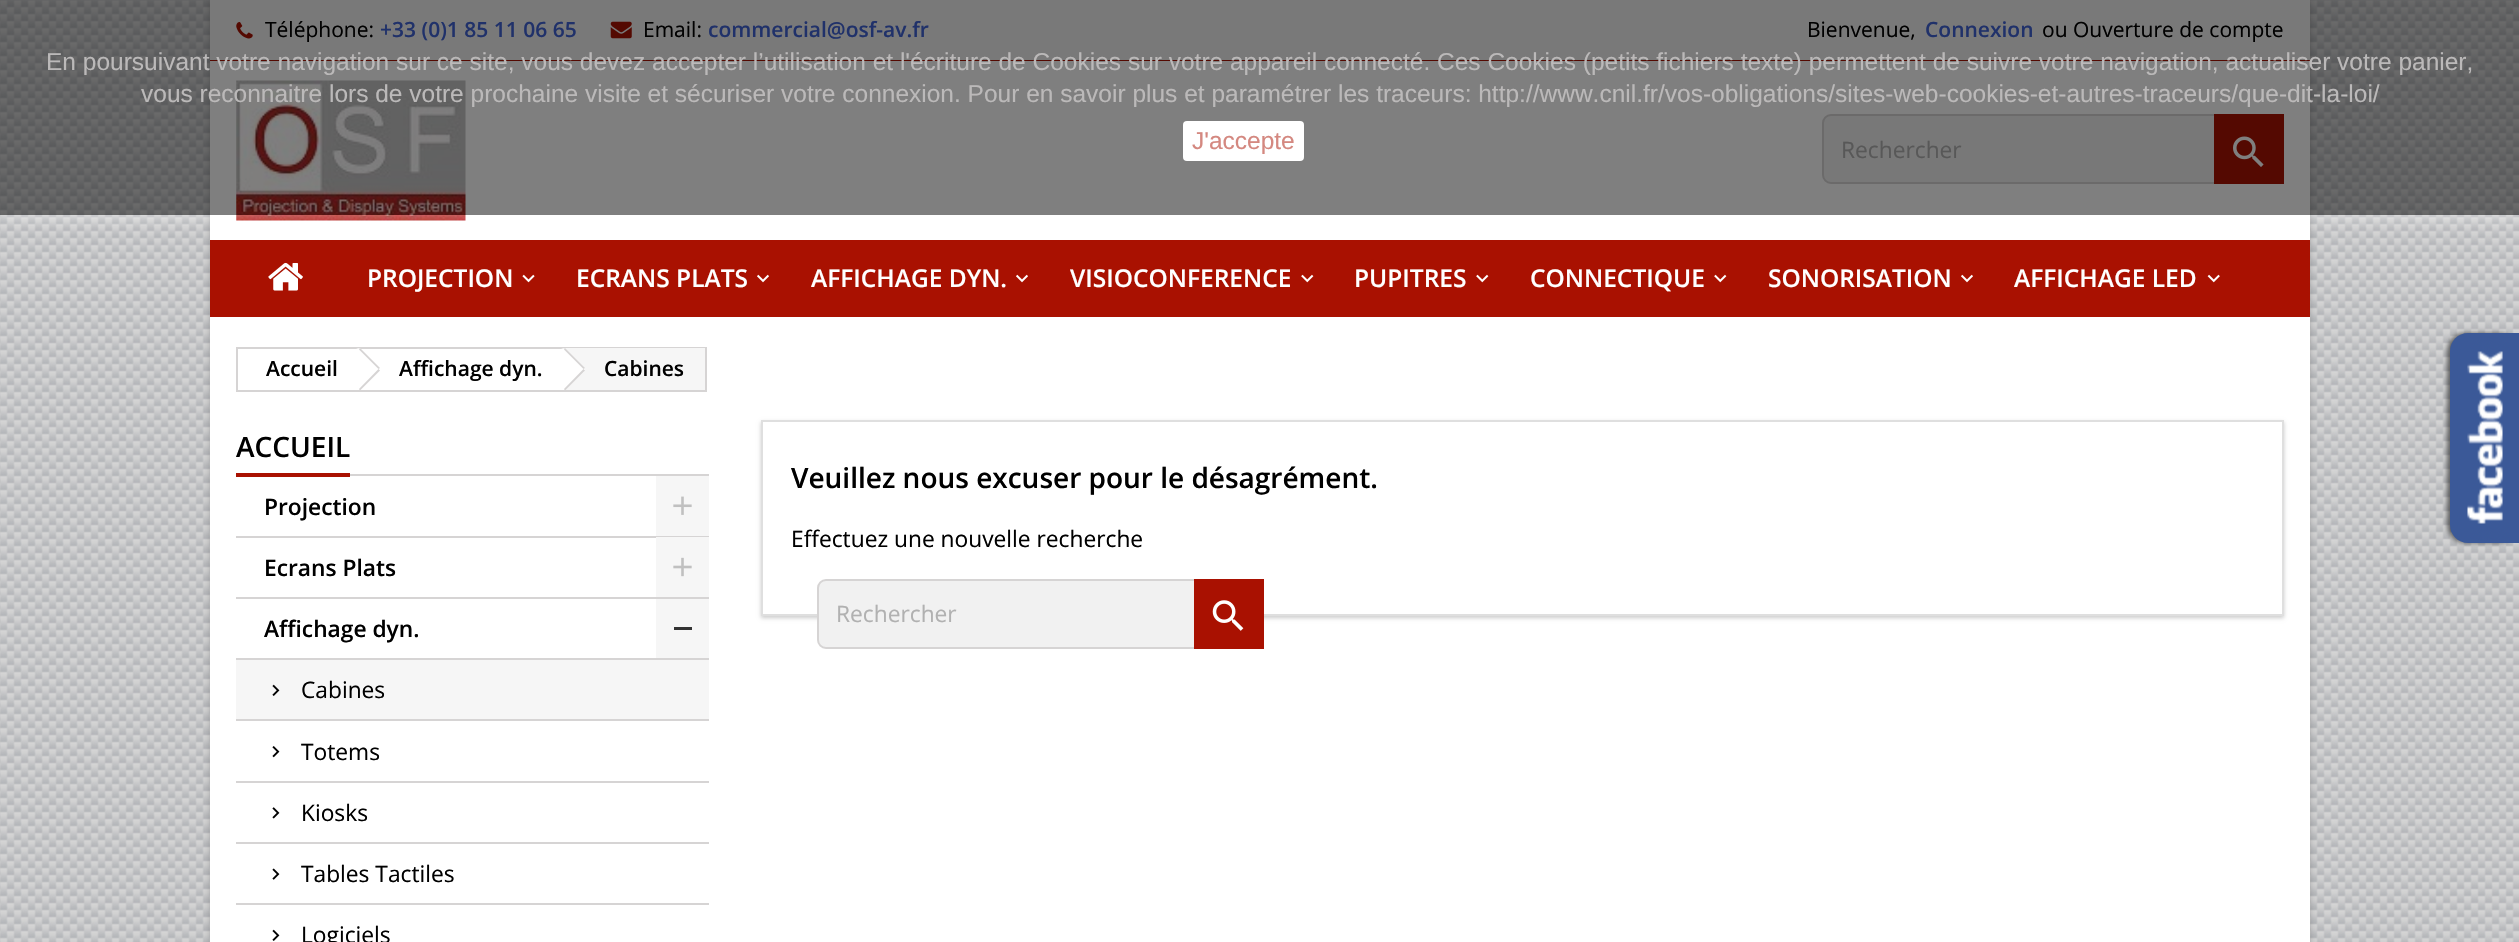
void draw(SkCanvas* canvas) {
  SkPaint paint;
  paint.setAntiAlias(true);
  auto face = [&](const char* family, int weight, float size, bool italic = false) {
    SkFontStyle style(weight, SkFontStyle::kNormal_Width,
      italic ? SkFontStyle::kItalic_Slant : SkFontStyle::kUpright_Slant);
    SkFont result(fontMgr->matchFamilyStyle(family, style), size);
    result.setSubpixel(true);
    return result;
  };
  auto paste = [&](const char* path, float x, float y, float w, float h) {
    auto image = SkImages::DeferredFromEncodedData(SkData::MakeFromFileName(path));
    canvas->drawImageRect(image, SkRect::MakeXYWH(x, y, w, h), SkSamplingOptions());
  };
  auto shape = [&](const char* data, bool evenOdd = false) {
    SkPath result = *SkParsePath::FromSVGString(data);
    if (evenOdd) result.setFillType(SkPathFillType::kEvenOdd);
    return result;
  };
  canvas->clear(0xfff7f7f7);
  paste("img/1.png", 0, 0, 2519, 942);
  paint.setColor(0x33000000);
  paint.setMaskFilter(SkMaskFilter::MakeBlur(kNormal_SkBlurStyle, 3.5f));
  canvas->drawRect(SkRect::MakeXYWH(210, 0, 2100, 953), paint);
  paint.setMaskFilter(nullptr);
  {
    const struct { float x, y, w, h; SkColor color; } items[] = {
      {210, 317, 2100, 625, 0xffffffff},
      {210, 0, 2100, 60, 0xfff2f2f2},
      {210, 60, 2100, 1, 0xffa91101},
    };
    for (auto [x, y, w, h, color] : items) {
      paint.setColor(color);
      canvas->drawRect(SkRect::MakeXYWH(x, y, w, h), paint);
    }
  }
  paste("img/2.png", 236, 22, 17, 17);
  paste("img/3.png", 610, 21, 22, 18);
  paint.setColor(0xffffffff);
  canvas->drawRect(SkRect::MakeXYWH(210, 61, 2100, 179), paint);
  paste("img/4.png", 236, 80, 230, 141);
  paint.setColor(0xfff1f1f1);
  canvas->drawRoundRect(SkRect::MakeXYWH(1823, 115, 460, 68), 8, 8, paint);
  paint.setStroke(true);
  paint.setStrokeWidth(2);
  paint.setColor(0xffd6d4d4);
  canvas->drawRoundRect(SkRect::MakeXYWH(1823, 115, 460, 68), 8, 8, paint);
  paint.setStroke(false);
  paint.setColor(0xffa91101);
  canvas->drawRect(SkRect::MakeXYWH(2214, 114, 70, 70), paint);
  paste("img/5.png", 2233, 136, 31, 31);
  canvas->drawRect(SkRect::MakeXYWH(210, 240, 2100, 77), paint);
  paste("img/6.png", 268, 262, 35, 29);
  paste("img/7.png", 522, 274, 13, 9);
  paste("img/8.png", 757, 274, 12, 9);
  paste("img/8.png", 1016, 274, 12, 9);
  paste("img/9.png", 1301, 274, 13, 9);
  paste("img/9.png", 1476, 274, 13, 9);
  paste("img/9.png", 1714, 274, 13, 9);
  paste("img/8.png", 1961, 274, 12, 9);
  paste("img/10.png", 2207, 274, 13, 9);
  paint.setStroke(true);
  paint.setColor(0xffd6d4d4);
  canvas->drawRect(SkRect::MakeXYWH(237, 348, 469, 43), paint);
  paint.setStroke(false);
  paint.setColor(0xffffffff);
  canvas->drawPath(shape("M361 349L379 367C380 368 380 370 379 372L361 389C360 390 358 390 356 389L339 372C338 370 338 368 339 367L356 349C358 348 360 348 361 349Z"), paint);
  paint.setColor(0xffd6d4d4);
  canvas->drawPath(shape("M360 348L380 368L378.5 369L359 349.5ZM378.5 369L380 370.5L360 390.5L359 389Z"), paint);
  paint.setColor(0xfff6f6f6);
  canvas->drawRect(SkRect::MakeXYWH(565, 348, 140, 42), paint);
  paint.setColor(0xffffffff);
  canvas->drawPath(shape("M566 349L584 367C585 368 585 370 584 372L566 389C565 390 563 390 561 389L544 372C543 370 543 368 544 367L561 349C563 348 565 348 566 349Z"), paint);
  paint.setColor(0xffd6d4d4);
  canvas->drawPath(shape("M565 348L585 368L583.5 369L564 349.5ZM583.5 369L585 370.5L565 390.5L564 389Z"), paint);
  {
    const struct { float x, y, w, h; SkColor color; } items[] = {
      {350, 474, 359, 2, 0xffd6d4d4},
      {236, 473, 114, 4, 0xffa91101},
      {236, 536, 473, 2, 0xffd6d4d4},
      {656, 476, 53, 60, 0xfff6f6f6},
    };
    for (auto [x, y, w, h, color] : items) {
      paint.setColor(color);
      canvas->drawRect(SkRect::MakeXYWH(x, y, w, h), paint);
    }
  }
  paste("img/11.png", 673, 496, 19, 19);
  paint.setColor(0xffd6d4d4);
  canvas->drawRect(SkRect::MakeXYWH(236, 597, 473, 2), paint);
  paint.setColor(0xfff6f6f6);
  canvas->drawRect(SkRect::MakeXYWH(656, 537, 53, 60), paint);
  paste("img/12.png", 673, 557, 19, 20);
  {
    const struct { float x, y, w, h; SkColor color; } items[] = {
      {236, 658, 473, 2, 0xffd6d4d4},
      {656, 599, 53, 59, 0xfff6f6f6},
      {674, 627, 18, 3, 0xff333333},
      {236, 660, 473, 59, 0xfff6f6f6},
      {236, 719, 473, 2, 0xffd6d4d4},
    };
    for (auto [x, y, w, h, color] : items) {
      paint.setColor(color);
      canvas->drawRect(SkRect::MakeXYWH(x, y, w, h), paint);
    }
  }
  paste("img/13.png", 272, 684, 8, 12);
  canvas->drawRect(SkRect::MakeXYWH(236, 781, 473, 2), paint);
  paste("img/14.png", 272, 746, 8, 12);
  canvas->drawRect(SkRect::MakeXYWH(236, 842, 473, 2), paint);
  paste("img/15.png", 272, 807, 8, 12);
  canvas->drawRect(SkRect::MakeXYWH(236, 903, 473, 2), paint);
  paste("img/16.png", 272, 868, 8, 12);
  paste("img/17.png", 272, 929, 8, 12);
  paint.setColor(0x33000000);
  paint.setMaskFilter(SkMaskFilter::MakeBlur(kNormal_SkBlurStyle, 2));
  canvas->drawRect(SkRect::MakeXYWH(761, 422, 1523, 196), paint);
  paint.setMaskFilter(nullptr);
  paint.setColor(0xffffffff);
  canvas->drawRect(SkRect::MakeXYWH(762, 421, 1521, 194), paint);
  paint.setStroke(true);
  paint.setColor(0xffdfdfdf);
  canvas->drawRect(SkRect::MakeXYWH(762, 421, 1521, 194), paint);
  paint.setStroke(false);
  paint.setColor(0xfff1f1f1);
  canvas->drawRoundRect(SkRect::MakeXYWH(818, 580, 445, 68), 8, 8, paint);
  paint.setStroke(true);
  paint.setColor(0xffd6d4d4);
  canvas->drawRoundRect(SkRect::MakeXYWH(818, 580, 445, 68), 8, 8, paint);
  paint.setStroke(false);
  paint.setColor(0xffa91101);
  canvas->drawRect(SkRect::MakeXYWH(1194, 579, 70, 70), paint);
  paste("img/18.png", 1212, 600, 32, 31);
  paint.setColor(0x80000000);
  paint.setMaskFilter(SkMaskFilter::MakeBlur(kNormal_SkBlurStyle, 2));
  canvas->drawRoundRect(SkRect::MakeXYWH(2447, 333, 70, 210), 18, 18, paint);
  paint.setMaskFilter(nullptr);
  paint.setColor(0xff3b5998);
  canvas->drawPath(shape("M2468 333H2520V543H2468C2458 543 2450 535 2450 525V351C2450 341 2458 333 2468 333Z"), paint);
  paste("img/19.png", 2467, 351, 36, 173);
  canvas->save();
  canvas->clipRect(SkRect::MakeXYWH(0, 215, 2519, 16));
  paint.setColor(0x80ffffff);
  paint.setMaskFilter(SkMaskFilter::MakeBlur(kNormal_SkBlurStyle, 9));
  canvas->drawRect(SkRect::MakeXYWH(0, 0, 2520, 215), paint);
  paint.setMaskFilter(nullptr);
  canvas->restore();
  auto f0 = face("Open Sans", 400, 21);
  paint.setColor(0xff000000);
  canvas->drawString("Téléphone:", 265, 37, f0, paint);
  auto f1 = face("Open Sans", 600, 21);
  paint.setColor(0xff3f62d4);
  canvas->drawString("+33 (0)1 85 11 06 65", 380, 37, f1, paint);
  paint.setColor(0xff000000);
  canvas->drawString("Email:", 643, 37, f0, paint);
  paint.setColor(0xff3f62d4);
  canvas->drawString("commercial@osf-av.fr", 708, 37, f1, paint);
  paint.setColor(0xff000000);
  canvas->drawString("Bienvenue,", 1807, 37, f0, paint);
  paint.setColor(0xff3f62d4);
  canvas->drawString("Connexion", 1925, 37, f1, paint);
  paint.setColor(0xff000000);
  canvas->drawString("ou Ouverture de compte", 2042, 37, f0, paint);
  auto f2 = face("Open Sans", 400, 22.75f);
  paint.setColor(0xffb1b1b1);
  canvas->drawString("Rechercher", 1841, 158, f2, paint);
  auto f3 = face("Open Sans", 600, 24.5f);
  paint.setColor(0xffffffff);
  {
    const struct { const char* s; float x, y; } items[] = {
      {"PROJECTION", 367, 287},
      {"ECRANS PLATS", 576, 287},
      {"AFFICHAGE DYN.", 811, 287},
      {"VISIOCONFERENCE", 1070, 287},
      {"PUPITRES", 1354, 287},
      {"CONNECTIQUE", 1530, 287},
      {"SONORISATION", 1768, 287},
      {"AFFICHAGE LED", 2014, 287},
    };
    for (auto [s, x, y] : items) {
      canvas->drawString(s, x, y, f3, paint);
    }
  }
  paint.setColor(0xff000000);
  {
    const struct { const char* s; float x, y; } items[] = {
      {"Accueil", 266, 376},
      {"Affichage dyn.", 399, 376},
      {"Cabines", 604, 376},
    };
    for (auto [s, x, y] : items) {
      canvas->drawString(s, x, y, f1, paint);
    }
  }
  auto f4 = face("Open Sans", 600, 28);
  canvas->drawString("ACCUEIL", 236, 457, f4, paint);
  auto f5 = face("Open Sans", 600, 22.75f);
  {
    const struct { const char* s; float x, y; } items[] = {
      {"Projection", 264, 515},
      {"Ecrans Plats", 264, 576},
      {"Affichage dyn.", 264, 637},
    };
    for (auto [s, x, y] : items) {
      canvas->drawString(s, x, y, f5, paint);
    }
  }
  {
    const struct { const char* s; float x, y; } items[] = {
      {"Cabines", 301, 698},
      {"Totems", 301, 760},
      {"Kiosks", 301, 821},
      {"Tables Tactiles", 301, 882},
      {"Logiciels", 301, 943},
    };
    for (auto [s, x, y] : items) {
      canvas->drawString(s, x, y, f2, paint);
    }
  }
  canvas->drawString("Veuillez nous excuser pour le désagrément.", 791, 488, f4, paint);
  canvas->drawString("Effectuez une nouvelle recherche", 791, 547, f2, paint);
  paint.setColor(0xffb1b1b1);
  canvas->drawString("Rechercher", 836, 622, f2, paint);
  paint.setColor(0x80000000);
  canvas->drawRect(SkRect::MakeXYWH(0, 0, 2519, 215), paint);
  auto f6 = face("Liberation Sans", 400, 24.5f);
  paint.setColor(0xffbbb9b9);
  canvas->drawString("En poursuivant votre navigation sur ce site, vous devez accepter l’utilisation et l'écriture de Cookies sur votre appareil connecté. Ces Cookies (petits fichiers texte) permettent de suivre votre navigation, actualiser votre panier,", 46, 70, f6, paint);
  canvas->drawString("vous reconnaitre lors de votre prochaine visite et sécuriser votre connexion. Pour en savoir plus et paramétrer les traceurs: http://www.cnil.fr/vos-obligations/sites-web-cookies-et-autres-traceurs/que-dit-la-loi/", 141, 102, f6, paint);
  paint.setColor(0xffffffff);
  canvas->drawRoundRect(SkRect::MakeXYWH(1183, 121, 121, 40), 4, 4, paint);
  paint.setColor(0xffd48880);
  canvas->drawString("J'accepte", 1192, 149, f6, paint);
}
